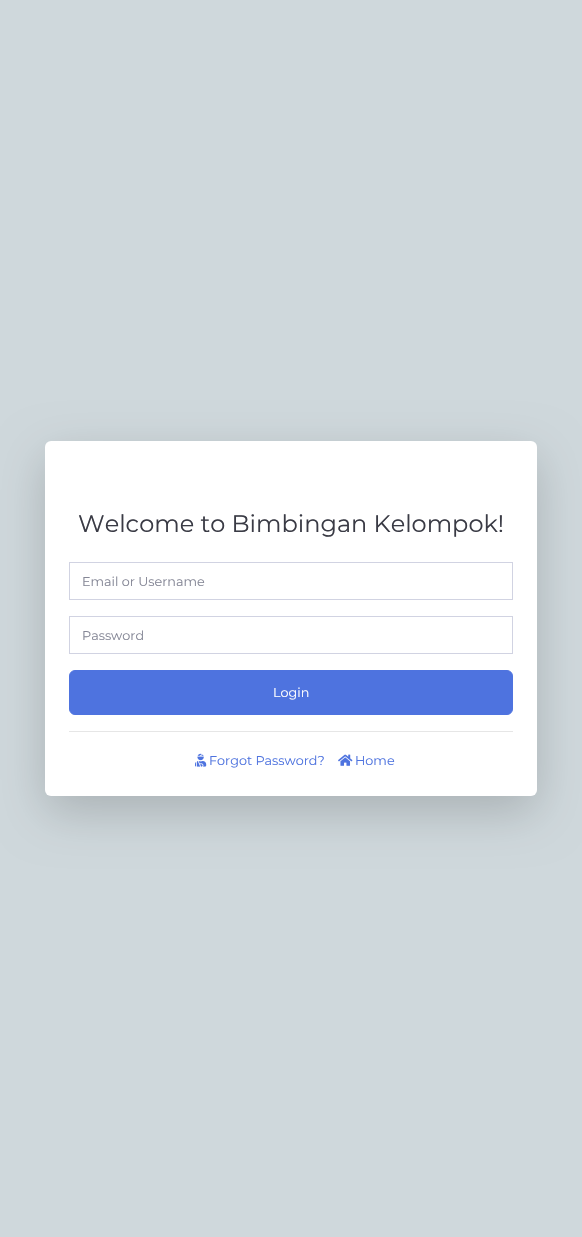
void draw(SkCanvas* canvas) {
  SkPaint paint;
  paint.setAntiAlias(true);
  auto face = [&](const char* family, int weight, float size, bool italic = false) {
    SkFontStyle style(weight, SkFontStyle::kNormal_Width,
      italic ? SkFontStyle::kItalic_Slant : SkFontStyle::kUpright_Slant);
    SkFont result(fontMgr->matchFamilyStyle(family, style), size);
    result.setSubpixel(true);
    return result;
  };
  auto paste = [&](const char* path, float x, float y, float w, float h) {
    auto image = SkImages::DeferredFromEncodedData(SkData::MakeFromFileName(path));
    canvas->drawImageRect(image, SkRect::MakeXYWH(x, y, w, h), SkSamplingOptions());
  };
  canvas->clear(0xffcfd8dc);
  paint.setColor(0x2e000000);
  paint.setMaskFilter(SkMaskFilter::MakeBlur(kNormal_SkBlurStyle, 24));
  canvas->drawRoundRect(SkRect::MakeXYWH(45, 457, 492, 355), 6, 6, paint);
  paint.setMaskFilter(nullptr);
  paint.setColor(0xffffffff);
  canvas->drawRoundRect(SkRect::MakeXYWH(45, 441, 492, 355), 6, 6, paint);
  paint.setStroke(true);
  paint.setStrokeWidth(1);
  paint.setColor(0xffd1d3e2);
  canvas->drawRect(SkRect::MakeXYWH(69.5f, 562.5f, 443, 37), paint);
  canvas->drawRect(SkRect::MakeXYWH(69.5f, 616.5f, 443, 37), paint);
  paint.setStroke(false);
  paint.setColor(0xff4e73df);
  canvas->drawRoundRect(SkRect::MakeXYWH(69.5f, 670.5f, 443, 44), 5.5f, 5.5f, paint);
  paint.setStroke(true);
  canvas->drawRoundRect(SkRect::MakeXYWH(69.5f, 670.5f, 443, 44), 5.5f, 5.5f, paint);
  paint.setStroke(false);
  paint.setColor(0xffe6e6e6);
  canvas->drawRect(SkRect::MakeXYWH(69, 731, 444, 1), paint);
  paste("img/1.png", 195, 753, 12, 14);
  paste("img/2.png", 338, 754, 15, 12);
  auto f0 = face("Montserrat", 400, 24);
  paint.setColor(0xff3a3b45);
  canvas->drawString("Welcome to Bimbingan Kelompok!", 78, 532, f0, paint);
  auto f1 = face("Montserrat", 400, 12.75f);
  paint.setColor(0xff858796);
  canvas->drawString("Email or Username", 82, 586, f1, paint);
  canvas->drawString("Password", 82, 640, f1, paint);
  paint.setColor(0xffffffff);
  canvas->drawString("Login", 273, 697, f1, paint);
  paint.setColor(0xff4e73df);
  canvas->drawString("Forgot Password?", 209, 765, f1, paint);
  canvas->drawString("Home", 355, 765, f1, paint);
}
